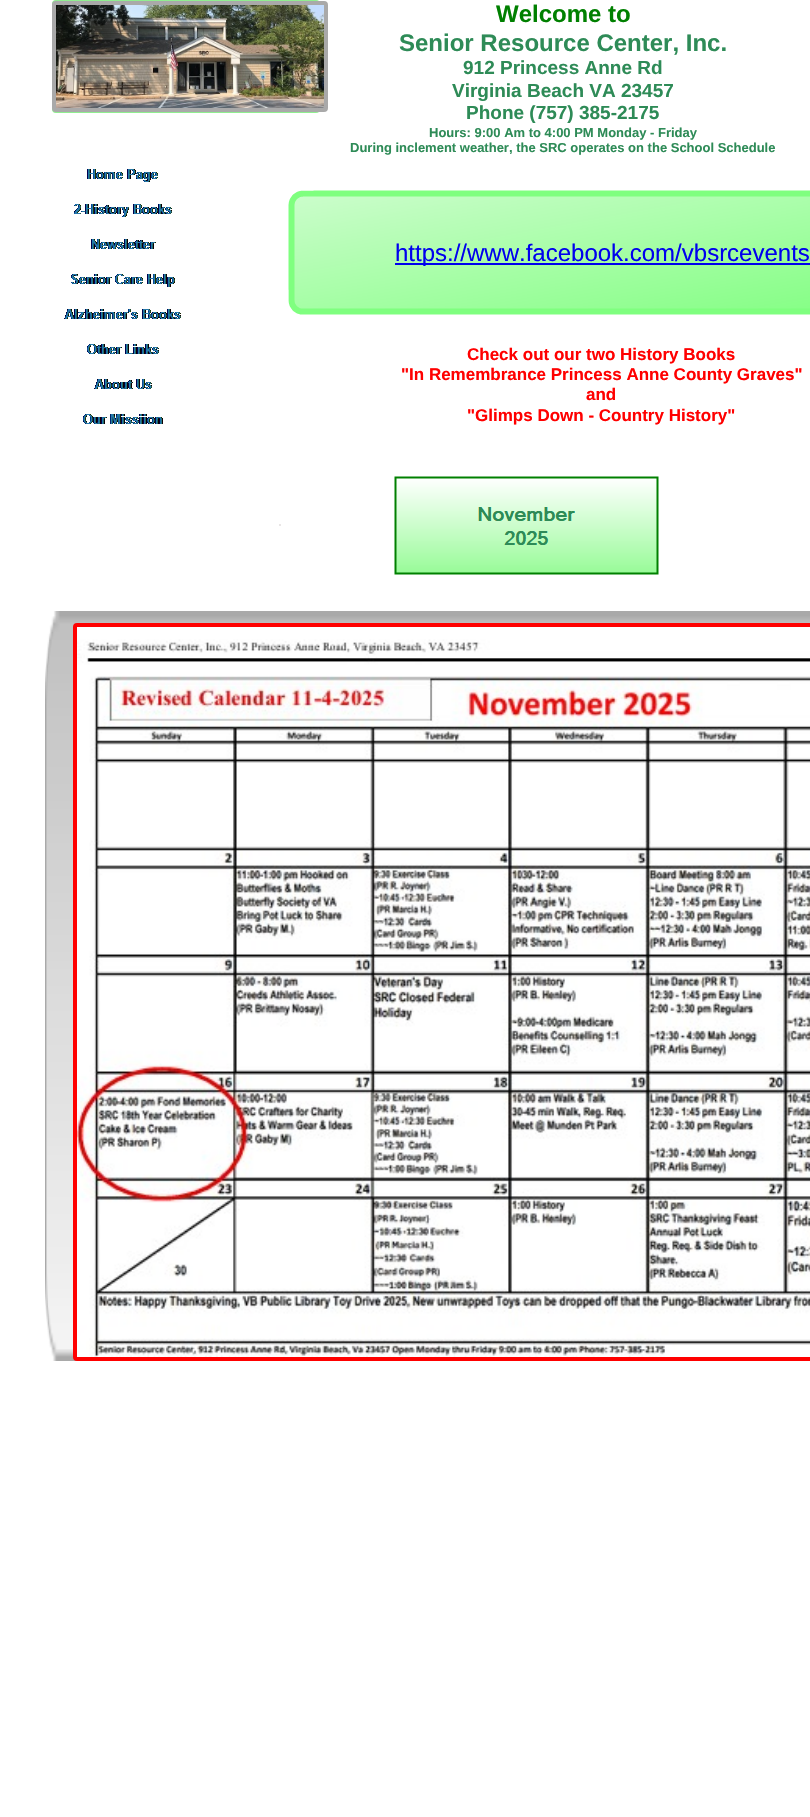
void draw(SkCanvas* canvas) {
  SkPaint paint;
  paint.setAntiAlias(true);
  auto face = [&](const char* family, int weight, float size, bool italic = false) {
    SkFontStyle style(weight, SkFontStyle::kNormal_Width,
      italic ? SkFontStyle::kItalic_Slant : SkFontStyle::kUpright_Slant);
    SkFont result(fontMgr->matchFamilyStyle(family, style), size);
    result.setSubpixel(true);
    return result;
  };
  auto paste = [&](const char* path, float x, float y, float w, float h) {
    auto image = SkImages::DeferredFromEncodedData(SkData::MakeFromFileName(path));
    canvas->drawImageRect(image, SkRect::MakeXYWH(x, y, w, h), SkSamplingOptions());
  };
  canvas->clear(0xffffffff);
  paint.setStroke(true);
  paint.setStrokeWidth(3);
  paint.setColor(0xff90ee90);
  canvas->drawRoundRect(SkRect::MakeXYWH(53.5f, 1.5f, 265, 110), 2.5f, 2.5f, paint);
  paint.setStrokeWidth(4);
  paint.setColor(0xffa9a9a9);
  canvas->drawRoundRect(SkRect::MakeXYWH(54, 3, 272, 107), 2, 2, paint);
  paste("img/1.png", 56, 5, 268, 103);
  paste("img/2.png", 87, 169, 71, 13);
  paste("img/3.png", 74, 204, 98, 13);
  paste("img/4.png", 91, 239, 65, 10);
  paste("img/5.png", 71, 274, 104, 13);
  paste("img/6.png", 64, 309, 117, 10);
  paste("img/7.png", 87, 344, 72, 10);
  paste("img/8.png", 94, 379, 58, 10);
  paste("img/9.png", 83, 414, 80, 10);
  paste("img/10.png", 288, 190, 522, 125);
  paint.setStroke(false);
  paint.setColor(0xff0000ee);
  canvas->drawRect(SkRect::MakeXYWH(395, 263, 415, 2), paint);
  paint.setColor(0xffe9e6e6);
  canvas->drawRect(SkRect::MakeXYWH(279, 524, 2, 2), paint);
  paste("img/11.png", 394, 476, 265, 99);
  paste("img/12.png", 45, 611, 765, 750);
  paint.setStroke(true);
  paint.setColor(0xffff0000);
  canvas->drawRoundRect(SkRect::MakeXYWH(75, 625, 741, 734), 2, 2, paint);
  paste("img/13.png", 77, 627, 733, 730);
  auto f0 = face("Liberation Sans", 700, 24);
  paint.setStroke(false);
  paint.setColor(0xff008000);
  canvas->drawString("Welcome to", 496, 22, f0, paint);
  paint.setColor(0xff2e8b57);
  canvas->drawString("Senior Resource Center, Inc.", 399, 51, f0, paint);
  auto f1 = face("Liberation Sans", 700, 19);
  {
    const struct { const char* s; float x, y; } items[] = {
      {"912 Princess Anne Rd", 463, 74},
      {"Virginia Beach VA 23457", 452, 97},
      {"Phone (757) 385-2175", 466, 119},
    };
    for (auto [s, x, y] : items) {
      canvas->drawString(s, x, y, f1, paint);
    }
  }
  auto f2 = face("Liberation Sans", 700, 13);
  canvas->drawString("Hours: 9:00 Am to 4:00 PM Monday - Friday", 429, 137, f2, paint);
  canvas->drawString("During inclement weather, the SRC operates on the School Schedule", 350, 152, f2, paint);
  auto f3 = face("Liberation Sans", 400, 24);
  paint.setColor(0xff0000ee);
  canvas->drawString("https://www.facebook.com/vbsrcevents", 395, 261, f3, paint);
  auto f4 = face("Liberation Sans", 700, 17);
  paint.setColor(0xffff0000);
  {
    const struct { const char* s; float x, y; } items[] = {
      {"Check out our two History Books", 467, 360},
      {"\"In Remembrance Princess Anne County Graves\"", 401, 380},
      {"and", 586, 400},
      {"\"Glimps Down - Country History\"", 467, 421},
    };
    for (auto [s, x, y] : items) {
      canvas->drawString(s, x, y, f4, paint);
    }
  }
}
